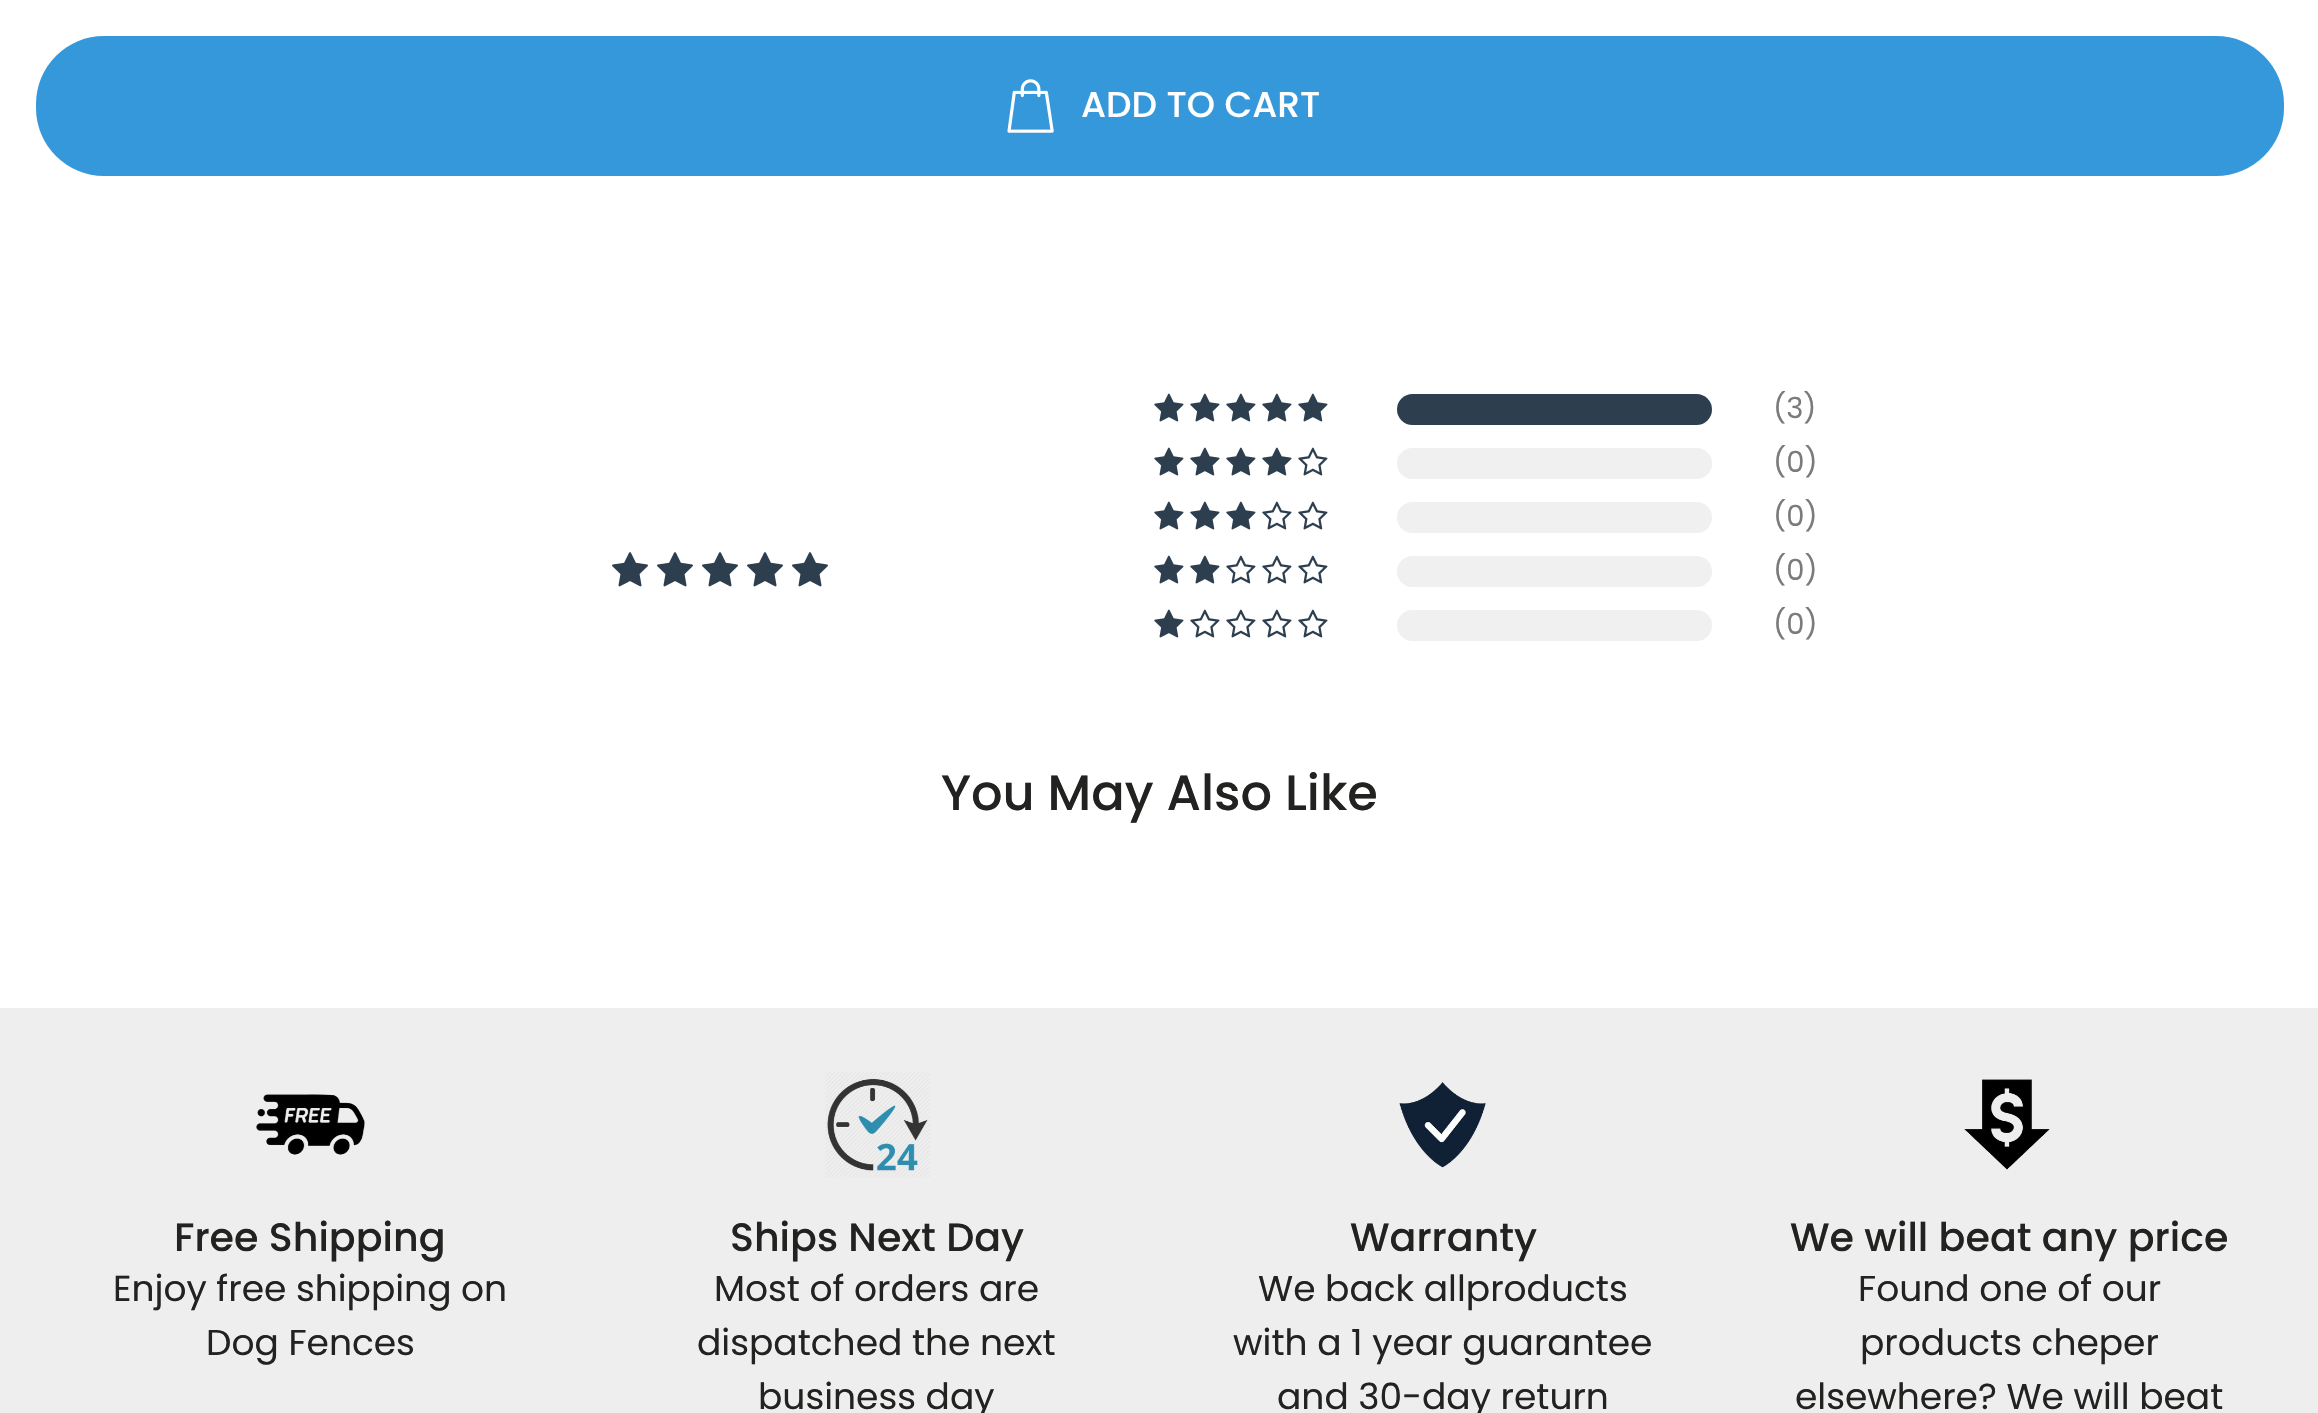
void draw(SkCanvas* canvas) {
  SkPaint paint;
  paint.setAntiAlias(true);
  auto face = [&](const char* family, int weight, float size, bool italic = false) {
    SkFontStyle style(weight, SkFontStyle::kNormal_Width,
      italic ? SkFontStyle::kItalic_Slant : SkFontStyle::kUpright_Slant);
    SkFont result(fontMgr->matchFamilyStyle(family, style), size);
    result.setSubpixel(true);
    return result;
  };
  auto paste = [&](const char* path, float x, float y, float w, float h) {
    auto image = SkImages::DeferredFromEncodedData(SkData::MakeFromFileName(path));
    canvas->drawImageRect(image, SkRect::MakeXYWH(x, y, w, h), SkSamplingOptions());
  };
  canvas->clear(0xffffffff);
  paint.setColor(0xff3498da);
  canvas->drawRoundRect(SkRect::MakeXYWH(36, 36, 2248, 140), 68, 68, paint);
  paste("img/1.png", 1007, 79, 47, 54);
  paste("img/2.png", 612, 552, 36, 35);
  paste("img/2.png", 657, 552, 36, 35);
  paste("img/2.png", 702, 552, 36, 35);
  paste("img/2.png", 747, 552, 36, 35);
  paste("img/2.png", 792, 552, 36, 35);
  paste("img/3.png", 1154, 393, 30, 29);
  paste("img/3.png", 1190, 393, 30, 29);
  paste("img/3.png", 1226, 393, 30, 29);
  paste("img/3.png", 1262, 393, 30, 29);
  paste("img/3.png", 1298, 393, 30, 29);
  paint.setColor(0xff2d3e4f);
  canvas->drawRoundRect(SkRect::MakeXYWH(1397, 394, 315, 31), 15.5f, 15.5f, paint);
  paste("img/3.png", 1154, 447, 30, 29);
  paste("img/3.png", 1190, 447, 30, 29);
  paste("img/3.png", 1226, 447, 30, 29);
  paste("img/3.png", 1262, 447, 30, 29);
  paste("img/4.png", 1298, 447, 30, 29);
  paint.setColor(0xfff0f0f0);
  canvas->drawRoundRect(SkRect::MakeXYWH(1397, 448, 315, 31), 15.5f, 15.5f, paint);
  paste("img/3.png", 1154, 501, 30, 29);
  paste("img/3.png", 1190, 501, 30, 29);
  paste("img/3.png", 1226, 501, 30, 29);
  paste("img/4.png", 1262, 501, 30, 29);
  paste("img/4.png", 1298, 501, 30, 29);
  canvas->drawRoundRect(SkRect::MakeXYWH(1397, 502, 315, 31), 15.5f, 15.5f, paint);
  paste("img/3.png", 1154, 555, 30, 29);
  paste("img/3.png", 1190, 555, 30, 29);
  paste("img/4.png", 1226, 555, 30, 29);
  paste("img/4.png", 1262, 555, 30, 29);
  paste("img/4.png", 1298, 555, 30, 29);
  canvas->drawRoundRect(SkRect::MakeXYWH(1397, 556, 315, 31), 15.5f, 15.5f, paint);
  paste("img/3.png", 1154, 609, 30, 29);
  paste("img/4.png", 1190, 609, 30, 29);
  paste("img/4.png", 1226, 609, 30, 29);
  paste("img/4.png", 1262, 609, 30, 29);
  paste("img/4.png", 1298, 609, 30, 29);
  canvas->drawRoundRect(SkRect::MakeXYWH(1397, 610, 315, 31), 15.5f, 15.5f, paint);
  paint.setColor(0xffeeeeee);
  canvas->drawRect(SkRect::MakeXYWH(0, 1008, 2318, 405), paint);
  paste("img/5.png", 256, 1094, 109, 61);
  paste("img/6.png", 825, 1072, 105, 105);
  paste("img/7.png", 1399, 1082, 87, 86);
  paste("img/8.png", 1964, 1079, 86, 91);
  auto f0 = face("Poppins", 500, 36);
  paint.setColor(0xffffffff);
  canvas->drawString("ADD TO CART", 1081, 117, f0, paint);
  auto f1 = face("Poppins", 400, 29);
  paint.setColor(0xff7b7b7b);
  {
    const struct { const char* s; float x, y; } items[] = {
      {"(3)", 1773, 418},
      {"(0)", 1773, 472},
      {"(0)", 1773, 526},
      {"(0)", 1773, 580},
      {"(0)", 1773, 634},
    };
    for (auto [s, x, y] : items) {
      canvas->drawString(s, x, y, f1, paint);
    }
  }
  auto f2 = face("Poppins", 500, 49.5f);
  paint.setColor(0xff222321);
  canvas->drawString("You May Also Like", 941, 810, f2, paint);
  auto f3 = face("Poppins", 500, 39.6f);
  canvas->drawString("Free Shipping", 174, 1251, f3, paint);
  auto f4 = face("Poppins", 400, 36);
  canvas->drawString("Enjoy free shipping on", 113, 1301, f4, paint);
  canvas->drawString("Dog Fences", 206, 1355, f4, paint);
  canvas->drawString("Ships Next Day", 730, 1251, f3, paint);
  {
    const struct { const char* s; float x, y; } items[] = {
      {"Most of orders are", 714, 1301},
      {"dispatched the next", 697, 1355},
      {"business day", 758, 1409},
    };
    for (auto [s, x, y] : items) {
      canvas->drawString(s, x, y, f4, paint);
    }
  }
  canvas->drawString("Warranty", 1350, 1251, f3, paint);
  {
    const struct { const char* s; float x, y; } items[] = {
      {"We back allproducts", 1258, 1301},
      {"with a 1 year guarantee", 1233, 1355},
      {"and 30-day return", 1277, 1409},
    };
    for (auto [s, x, y] : items) {
      canvas->drawString(s, x, y, f4, paint);
    }
  }
  canvas->drawString("We will beat any price", 1790, 1251, f3, paint);
  {
    const struct { const char* s; float x, y; } items[] = {
      {"Found one of our", 1858, 1301},
      {"products cheper", 1860, 1355},
      {"elsewhere? We will beat", 1795, 1409},
    };
    for (auto [s, x, y] : items) {
      canvas->drawString(s, x, y, f4, paint);
    }
  }
}
